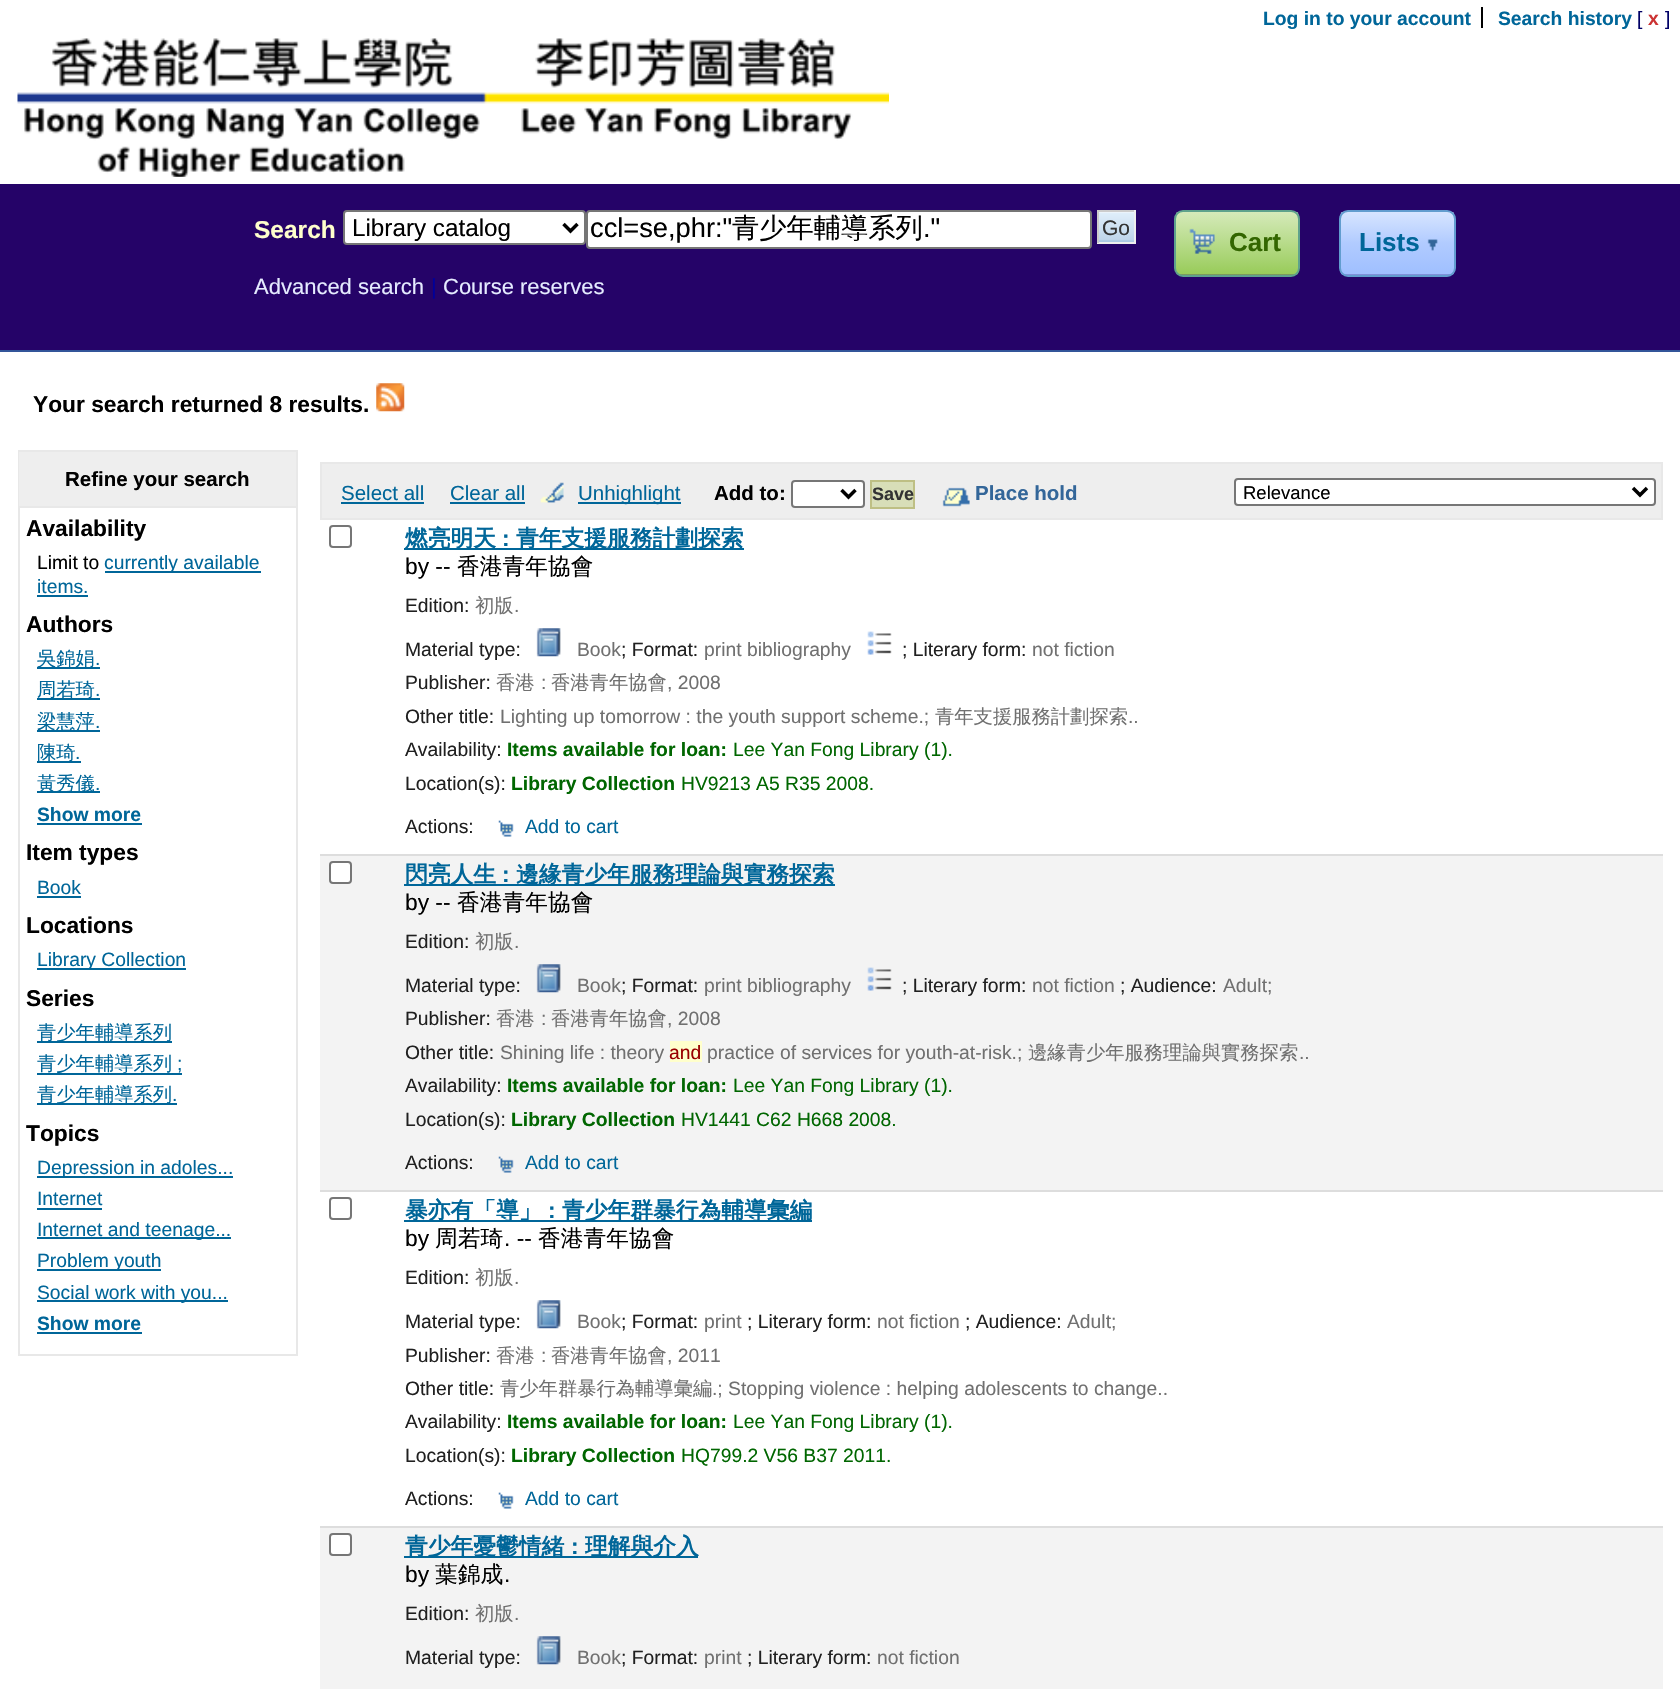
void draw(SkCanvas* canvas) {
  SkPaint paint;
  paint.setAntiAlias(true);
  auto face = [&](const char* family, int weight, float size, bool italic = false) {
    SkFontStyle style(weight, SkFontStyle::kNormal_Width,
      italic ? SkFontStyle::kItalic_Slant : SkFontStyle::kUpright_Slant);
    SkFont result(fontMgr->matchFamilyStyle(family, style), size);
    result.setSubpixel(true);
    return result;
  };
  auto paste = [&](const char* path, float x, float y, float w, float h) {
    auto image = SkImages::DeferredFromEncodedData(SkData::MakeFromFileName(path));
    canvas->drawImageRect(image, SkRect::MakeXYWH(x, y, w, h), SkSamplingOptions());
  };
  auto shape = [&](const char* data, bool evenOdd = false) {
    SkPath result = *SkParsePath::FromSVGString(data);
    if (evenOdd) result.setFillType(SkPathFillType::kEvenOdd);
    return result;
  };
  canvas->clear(0xffffffff);
  paint.setColor(0xff000000);
  canvas->drawRect(SkRect::MakeXYWH(1481, 7, 2, 21), paint);
  paste("img/1.png", 17, 38, 872, 139);
  paint.setColor(0xff250368);
  canvas->drawRect(SkRect::MakeXYWH(0, 184, 1680, 166), paint);
  paint.setColor(0xff335599);
  canvas->drawRect(SkRect::MakeXYWH(0, 350, 1680, 2), paint);
  paint.setColor(0xffffffff);
  canvas->drawRoundRect(SkRect::MakeXYWH(344, 211, 241, 33), 3, 3, paint);
  paint.setStroke(true);
  paint.setStrokeWidth(2);
  paint.setColor(0xff767676);
  canvas->drawRoundRect(SkRect::MakeXYWH(344, 211, 241, 33), 3, 3, paint);
  paint.setStrokeWidth(3.5f);
  paint.setColor(0xff000000);
  canvas->drawPath(shape("M563.5 224L570.5 231L577.5 224"), paint);
  paint.setStroke(false);
  paint.setColor(0xffffffff);
  canvas->drawRoundRect(SkRect::MakeXYWH(587, 211, 504, 37), 3, 3, paint);
  paint.setStroke(true);
  paint.setStrokeWidth(2);
  paint.setColor(0xff767676);
  canvas->drawRoundRect(SkRect::MakeXYWH(587, 211, 504, 37), 3, 3, paint);
  paint.setStroke(false);
  {
    const SkColor colors[] = {0xfff4f9fc, 0xffdfeefa, 0xffbfd5ea, 0xffa1c4e2, 0xffb8d0e6};
    const float stops[] = {0, 0.04f, 0.93f, 0.97f, 1};
    const SkPoint ends[] = {{1117, 212}, {1117, 242}};
    paint.setShader(SkGradientShader::MakeLinear(ends, colors, stops, 5, SkTileMode::kClamp));
    paint.setAlpha(255);
  }
  canvas->drawRect(SkRect::MakeXYWH(1099, 212, 35, 30), paint);
  paint.setShader(nullptr);
  {
    const struct { float x, y, w, h; SkColor color; } items[] = {
      {1097, 210, 39, 2, 0xffcccccc},
      {1134, 210, 2, 33, 0xffeeeeee},
      {1097, 242, 39, 2, 0xffeeeeee},
      {1097, 210, 2, 33, 0xffcccccc},
    };
    for (auto [x, y, w, h, color] : items) {
      paint.setColor(color);
      canvas->drawRect(SkRect::MakeXYWH(x, y, w, h), paint);
    }
  }
  paste("img/2.png", 1176, 211, 123, 64);
  paint.setStroke(true);
  paint.setColor(0xff5ea28c);
  canvas->drawRoundRect(SkRect::MakeXYWH(1175, 211, 124, 65), 8, 8, paint);
  paste("img/3.png", 1340, 211, 115, 66);
  paint.setColor(0xff629dcf);
  canvas->drawRoundRect(SkRect::MakeXYWH(1340, 211, 115, 65), 8, 8, paint);
  paste("img/4.png", 376, 383, 29, 29);
  paint.setColor(0xffe8e8e8);
  canvas->drawRect(SkRect::MakeXYWH(19, 451, 278, 904), paint);
  paint.setStroke(false);
  {
    const struct { float x, y, w, h; SkColor color; } items[] = {
      {19, 452, 277, 54, 0xffeeeeee},
      {19, 506, 277, 2, 0xffe8e8e8},
      {105, 571, 156, 2, 0xff006699},
      {37, 595, 51, 2, 0xff006699},
      {37, 667, 63, 2, 0xff006699},
      {37, 698, 63, 2, 0xff006699},
      {37, 730, 63, 2, 0xff006699},
      {37, 761, 44, 2, 0xff006699},
      {37, 791, 63, 2, 0xff006699},
      {37, 823, 105, 2, 0xff006699},
      {37, 896, 44, 2, 0xff006699},
      {37, 968, 149, 2, 0xff006699},
      {37, 1041, 135, 2, 0xff006699},
      {37, 1073, 145, 2, 0xff006699},
      {37, 1103, 140, 2, 0xff006699},
      {37, 1176, 196, 2, 0xff006699},
      {37, 1208, 65, 2, 0xff006699},
      {37, 1237, 194, 2, 0xff006699},
      {37, 1269, 124, 2, 0xff006699},
      {37, 1300, 191, 2, 0xff006699},
      {37, 1332, 105, 2, 0xff006699},
      {322, 464, 1339, 54, 0xffeeeeee},
      {320, 462, 1343, 2, 0xffe8e8e8},
      {1661, 462, 2, 58, 0xffe8e8e8},
      {320, 518, 1343, 2, 0xffe8e8e8},
      {320, 462, 2, 58, 0xffe8e8e8},
      {341, 502, 83, 2, 0xff006699},
      {450, 502, 75, 2, 0xff006699},
    };
    for (auto [x, y, w, h, color] : items) {
      paint.setColor(color);
      canvas->drawRect(SkRect::MakeXYWH(x, y, w, h), paint);
    }
  }
  paste("img/5.png", 540, 482, 24, 21);
  canvas->drawRect(SkRect::MakeXYWH(578, 502, 103, 2), paint);
  paint.setColor(0xffffffff);
  canvas->drawRoundRect(SkRect::MakeXYWH(792, 481, 72, 26), 3, 3, paint);
  paint.setStroke(true);
  paint.setColor(0xff767676);
  canvas->drawRoundRect(SkRect::MakeXYWH(792, 481, 72, 26), 3, 3, paint);
  paint.setStrokeWidth(3.5f);
  paint.setColor(0xff000000);
  canvas->drawPath(shape("M841.5 490L848.5 497L855.5 490"), paint);
  paint.setStroke(false);
  paint.setColor(0xffd8deb8);
  canvas->drawRect(SkRect::MakeXYWH(871, 481, 43, 27), paint);
  paint.setStroke(true);
  paint.setStrokeWidth(2);
  paint.setColor(0xffbebf84);
  canvas->drawRect(SkRect::MakeXYWH(871, 481, 43, 27), paint);
  paste("img/6.png", 942, 487, 28, 20);
  paint.setStroke(false);
  paint.setColor(0xffffffff);
  canvas->drawRoundRect(SkRect::MakeXYWH(1235, 479, 420, 26), 3, 3, paint);
  paint.setStroke(true);
  paint.setColor(0xff767676);
  canvas->drawRoundRect(SkRect::MakeXYWH(1235, 479, 420, 26), 3, 3, paint);
  paint.setStrokeWidth(3.5f);
  paint.setColor(0xff000000);
  canvas->drawPath(shape("M1633 488L1640 495L1647 488"), paint);
  paint.setStrokeWidth(2);
  paint.setColor(0xff767676);
  canvas->drawRoundRect(SkRect::MakeXYWH(330, 526, 21, 21), 3, 3, paint);
  paint.setStroke(false);
  paint.setColor(0xff006699);
  canvas->drawRect(SkRect::MakeXYWH(404, 548, 340, 2), paint);
  paste("img/7.png", 536, 628, 25, 29);
  paste("img/8.png", 867, 631, 25, 24);
  paste("img/9.png", 498, 820, 16, 17);
  {
    const struct { float x, y, w, h; SkColor color; } items[] = {
      {320, 854, 1343, 2, 0xffdddddd},
      {320, 1190, 1343, 2, 0xffdddddd},
      {320, 856, 1343, 334, 0xfff3f3f3},
    };
    for (auto [x, y, w, h, color] : items) {
      paint.setColor(color);
      canvas->drawRect(SkRect::MakeXYWH(x, y, w, h), paint);
    }
  }
  paint.setColor(0xffffffff);
  canvas->drawRoundRect(SkRect::MakeXYWH(330, 862, 21, 21), 3, 3, paint);
  paint.setStroke(true);
  paint.setColor(0xff767676);
  canvas->drawRoundRect(SkRect::MakeXYWH(330, 862, 21, 21), 3, 3, paint);
  paint.setStroke(false);
  paint.setColor(0xff006699);
  canvas->drawRect(SkRect::MakeXYWH(404, 884, 431, 2), paint);
  paste("img/10.png", 536, 964, 25, 29);
  paste("img/11.png", 867, 967, 25, 24);
  paint.setColor(0xffffffcc);
  canvas->drawRect(SkRect::MakeXYWH(670, 1041, 32, 21), paint);
  paste("img/12.png", 498, 1156, 16, 17);
  paint.setStroke(true);
  paint.setColor(0xff767676);
  canvas->drawRoundRect(SkRect::MakeXYWH(330, 1198, 21, 21), 3, 3, paint);
  paint.setStroke(false);
  paint.setColor(0xff006699);
  canvas->drawRect(SkRect::MakeXYWH(404, 1220, 408, 2), paint);
  paste("img/7.png", 536, 1300, 25, 29);
  paste("img/9.png", 498, 1492, 16, 17);
  paint.setColor(0xffdddddd);
  canvas->drawRect(SkRect::MakeXYWH(320, 1526, 1343, 2), paint);
  paint.setColor(0xfff3f3f3);
  canvas->drawRect(SkRect::MakeXYWH(320, 1528, 1343, 161), paint);
  paint.setColor(0xffffffff);
  canvas->drawRoundRect(SkRect::MakeXYWH(330, 1534, 21, 21), 3, 3, paint);
  paint.setStroke(true);
  paint.setColor(0xff767676);
  canvas->drawRoundRect(SkRect::MakeXYWH(330, 1534, 21, 21), 3, 3, paint);
  paint.setStroke(false);
  paint.setColor(0xff006699);
  canvas->drawRect(SkRect::MakeXYWH(404, 1556, 294, 2), paint);
  paste("img/10.png", 536, 1636, 25, 29);
  auto f0 = face("Liberation Sans", 700, 19.3f);
  canvas->drawString("Log in to your account", 1263, 25, f0, paint);
  canvas->drawString("Search history", 1498, 25, f0, paint);
  auto f1 = face("Liberation Sans", 400, 19.3f);
  paint.setColor(0xff000066);
  canvas->drawString("[", 1637, 25, f1, paint);
  paint.setColor(0xffcc3333);
  canvas->drawString("x", 1648, 25, f0, paint);
  paint.setColor(0xff000066);
  canvas->drawString("]", 1665, 25, f1, paint);
  auto f2 = face("Liberation Sans", 700, 24.5f);
  paint.setColor(0xffffffcc);
  canvas->drawString("Search", 254, 238, f2, paint);
  auto f3 = face("Liberation Sans", 400, 24.25f);
  paint.setColor(0xff000000);
  canvas->drawString("Library catalog", 352, 236, f3, paint);
  auto f4 = face("Liberation Sans", 400, 27.25f);
  canvas->drawString("ccl=se,phr:\"", 590, 237, f4, paint);
  auto f5 = face("WenQuanYi Zen Hei", 500, 27.25f);
  canvas->drawString("青少年輔導系列", 732, 237, f5, paint);
  canvas->drawString(".\"", 923, 237, f4, paint);
  auto f6 = face("Liberation Sans", 400, 21);
  paint.setColor(0xff333333);
  canvas->drawString("Go", 1102, 235, f6, paint);
  auto f7 = face("Liberation Sans", 700, 26);
  paint.setColor(0xff336600);
  canvas->drawString("Cart", 1229, 251, f7, paint);
  paint.setColor(0xff006699);
  canvas->drawString("Lists", 1359, 251, f7, paint);
  auto f8 = face("Liberation Sans", 400, 22);
  paint.setColor(0xffe5ebff);
  canvas->drawString("Advanced search", 254, 294, f8, paint);
  paint.setColor(0xff000099);
  canvas->drawString("|", 431, 294, f8, paint);
  paint.setColor(0xffe5ebff);
  canvas->drawString("Course reserves", 443, 294, f8, paint);
  auto f9 = face("Liberation Sans", 700, 22.75f);
  paint.setColor(0xff000000);
  canvas->drawString("Your search returned 8 results.", 33, 412, f9, paint);
  auto f10 = face("Liberation Sans", 700, 20.5f);
  canvas->drawString("Refine your search", 65, 486, f10, paint);
  canvas->drawString("Availability", 26, 536, f9, paint);
  canvas->drawString("Limit to", 37, 569, f1, paint);
  paint.setColor(0xff006699);
  canvas->drawString("currently available", 104, 569, f1, paint);
  canvas->drawString("items.", 37, 593, f1, paint);
  paint.setColor(0xff000000);
  canvas->drawString("Authors", 26, 632, f9, paint);
  auto f11 = face("WenQuanYi Zen Hei", 500, 19.3f);
  paint.setColor(0xff006699);
  canvas->drawString("吳錦娟", 37, 665, f11, paint);
  canvas->drawString(".", 95, 665, f1, paint);
  canvas->drawString("周若琦", 37, 696, f11, paint);
  canvas->drawString(".", 95, 696, f1, paint);
  canvas->drawString("梁慧萍", 37, 728, f11, paint);
  canvas->drawString(".", 95, 728, f1, paint);
  canvas->drawString("陳琦", 37, 759, f11, paint);
  canvas->drawString(".", 75, 759, f1, paint);
  canvas->drawString("黃秀儀", 37, 790, f11, paint);
  canvas->drawString(".", 95, 790, f1, paint);
  canvas->drawString("Show more", 37, 821, f0, paint);
  paint.setColor(0xff000000);
  canvas->drawString("Item types", 26, 860, f9, paint);
  paint.setColor(0xff006699);
  canvas->drawString("Book", 37, 894, f1, paint);
  paint.setColor(0xff000000);
  canvas->drawString("Locations", 26, 933, f9, paint);
  paint.setColor(0xff006699);
  canvas->drawString("Library Collection", 37, 966, f1, paint);
  paint.setColor(0xff000000);
  canvas->drawString("Series", 26, 1006, f9, paint);
  paint.setColor(0xff006699);
  canvas->drawString("青少年輔導系列", 37, 1039, f11, paint);
  canvas->drawString("青少年輔導系列", 37, 1070, f11, paint);
  canvas->drawString(";", 177, 1070, f1, paint);
  canvas->drawString("青少年輔導系列", 37, 1101, f11, paint);
  canvas->drawString(".", 172, 1101, f1, paint);
  paint.setColor(0xff000000);
  canvas->drawString("Topics", 26, 1141, f9, paint);
  paint.setColor(0xff006699);
  {
    const struct { const char* s; float x, y; } items[] = {
      {"Depression in adoles...", 37, 1174},
      {"Internet", 37, 1205},
      {"Internet and teenage...", 37, 1236},
      {"Problem youth", 37, 1267},
      {"Social work with you...", 37, 1299},
    };
    for (auto [s, x, y] : items) {
      canvas->drawString(s, x, y, f1, paint);
    }
  }
  canvas->drawString("Show more", 37, 1330, f0, paint);
  auto f12 = face("Liberation Sans", 400, 20.5f);
  {
    const struct { const char* s; float x, y; } items[] = {
      {"Select all", 341, 500},
      {"Clear all", 450, 500},
      {"Unhighlight", 578, 500},
    };
    for (auto [s, x, y] : items) {
      canvas->drawString(s, x, y, f12, paint);
    }
  }
  paint.setColor(0xff000000);
  canvas->drawString("Add to:", 714, 500, f10, paint);
  auto f13 = face("Liberation Sans", 700, 18);
  paint.setColor(0xff333333);
  canvas->drawString("Save", 872, 500, f13, paint);
  paint.setColor(0xff336699);
  canvas->drawString("Place hold", 975, 500, f10, paint);
  auto f14 = face("Liberation Sans", 400, 18.5f);
  paint.setColor(0xff000000);
  canvas->drawString("Relevance", 1243, 499, f14, paint);
  auto f15 = face("WenQuanYi Zen Hei", 700, 22.75f);
  paint.setColor(0xff006699);
  canvas->drawString("燃亮明天", 405, 546, f15, paint);
  canvas->drawString(":", 502, 546, f9, paint);
  canvas->drawString("青年支援服務計劃探索", 516, 546, f15, paint);
  auto f16 = face("Liberation Sans", 400, 22.75f);
  paint.setColor(0xff000000);
  canvas->drawString("by --", 405, 574, f16, paint);
  auto f17 = face("WenQuanYi Zen Hei", 500, 22.75f);
  canvas->drawString("香港青年協會", 457, 574, f17, paint);
  paint.setColor(0xff202020);
  canvas->drawString("Edition:", 405, 612, f1, paint);
  paint.setColor(0xff707070);
  canvas->drawString("初版", 475, 612, f11, paint);
  canvas->drawString(".", 514, 612, f1, paint);
  paint.setColor(0xff202020);
  canvas->drawString("Material type:", 405, 656, f1, paint);
  paint.setColor(0xff707070);
  canvas->drawString("Book", 577, 656, f1, paint);
  paint.setColor(0xff202020);
  canvas->drawString("; Format:", 621, 656, f1, paint);
  paint.setColor(0xff707070);
  canvas->drawString("print bibliography", 704, 656, f1, paint);
  paint.setColor(0xff202020);
  canvas->drawString("; Literary form:", 902, 656, f1, paint);
  paint.setColor(0xff707070);
  canvas->drawString("not fiction", 1032, 656, f1, paint);
  paint.setColor(0xff202020);
  canvas->drawString("Publisher:", 405, 689, f1, paint);
  paint.setColor(0xff707070);
  canvas->drawString("香港", 496, 689, f11, paint);
  canvas->drawString(":", 541, 689, f1, paint);
  canvas->drawString("香港青年協會", 551, 689, f11, paint);
  canvas->drawString(", 2008", 667, 689, f1, paint);
  paint.setColor(0xff202020);
  canvas->drawString("Other title:", 405, 723, f1, paint);
  paint.setColor(0xff707070);
  canvas->drawString("Lighting up tomorrow : the youth support scheme.;", 500, 723, f1, paint);
  canvas->drawString("青年支援服務計劃探索", 935, 723, f11, paint);
  canvas->drawString("..", 1128, 723, f1, paint);
  paint.setColor(0xff202020);
  canvas->drawString("Availability:", 405, 756, f1, paint);
  paint.setColor(0xff006600);
  canvas->drawString("Items available for loan:", 507, 756, f0, paint);
  canvas->drawString("Lee Yan Fong Library (1).", 733, 756, f1, paint);
  paint.setColor(0xff202020);
  canvas->drawString("Location(s):", 405, 790, f1, paint);
  paint.setColor(0xff006600);
  canvas->drawString("Library Collection", 511, 790, f0, paint);
  canvas->drawString("HV9213 A5 R35 2008.", 681, 790, f1, paint);
  paint.setColor(0xff202020);
  canvas->drawString("Actions:", 405, 833, f1, paint);
  paint.setColor(0xff006699);
  canvas->drawString("Add to cart", 525, 833, f1, paint);
  canvas->drawString("閃亮人生", 405, 882, f15, paint);
  canvas->drawString(":", 502, 882, f9, paint);
  canvas->drawString("邊緣青少年服務理論與實務探索", 516, 882, f15, paint);
  paint.setColor(0xff000000);
  canvas->drawString("by --", 405, 910, f16, paint);
  canvas->drawString("香港青年協會", 457, 910, f17, paint);
  paint.setColor(0xff202020);
  canvas->drawString("Edition:", 405, 948, f1, paint);
  paint.setColor(0xff707070);
  canvas->drawString("初版", 475, 948, f11, paint);
  canvas->drawString(".", 514, 948, f1, paint);
  paint.setColor(0xff202020);
  canvas->drawString("Material type:", 405, 992, f1, paint);
  paint.setColor(0xff707070);
  canvas->drawString("Book", 577, 992, f1, paint);
  paint.setColor(0xff202020);
  canvas->drawString("; Format:", 621, 992, f1, paint);
  paint.setColor(0xff707070);
  canvas->drawString("print bibliography", 704, 992, f1, paint);
  paint.setColor(0xff202020);
  canvas->drawString("; Literary form:", 902, 992, f1, paint);
  paint.setColor(0xff707070);
  canvas->drawString("not fiction", 1032, 992, f1, paint);
  paint.setColor(0xff202020);
  canvas->drawString("; Audience:", 1120, 992, f1, paint);
  paint.setColor(0xff707070);
  canvas->drawString("Adult;", 1223, 992, f1, paint);
  paint.setColor(0xff202020);
  canvas->drawString("Publisher:", 405, 1025, f1, paint);
  paint.setColor(0xff707070);
  canvas->drawString("香港", 496, 1025, f11, paint);
  canvas->drawString(":", 541, 1025, f1, paint);
  canvas->drawString("香港青年協會", 551, 1025, f11, paint);
  canvas->drawString(", 2008", 667, 1025, f1, paint);
  paint.setColor(0xff202020);
  canvas->drawString("Other title:", 405, 1059, f1, paint);
  paint.setColor(0xff707070);
  canvas->drawString("Shining life : theory", 500, 1059, f1, paint);
  paint.setColor(0xff990000);
  canvas->drawString("and", 669, 1059, f1, paint);
  paint.setColor(0xff707070);
  canvas->drawString("practice of services for youth-at-risk.;", 707, 1059, f1, paint);
  canvas->drawString("邊緣青少年服務理論與實務探索", 1028, 1059, f11, paint);
  canvas->drawString("..", 1299, 1059, f1, paint);
  paint.setColor(0xff202020);
  canvas->drawString("Availability:", 405, 1092, f1, paint);
  paint.setColor(0xff006600);
  canvas->drawString("Items available for loan:", 507, 1092, f0, paint);
  canvas->drawString("Lee Yan Fong Library (1).", 733, 1092, f1, paint);
  paint.setColor(0xff202020);
  canvas->drawString("Location(s):", 405, 1126, f1, paint);
  paint.setColor(0xff006600);
  canvas->drawString("Library Collection", 511, 1126, f0, paint);
  canvas->drawString("HV1441 C62 H668 2008.", 681, 1126, f1, paint);
  paint.setColor(0xff202020);
  canvas->drawString("Actions:", 405, 1169, f1, paint);
  paint.setColor(0xff006699);
  canvas->drawString("Add to cart", 525, 1169, f1, paint);
  canvas->drawString("暴亦有「導」", 405, 1218, f15, paint);
  canvas->drawString(":", 548, 1218, f9, paint);
  canvas->drawString("青少年群暴行為輔導彙編", 562, 1218, f15, paint);
  paint.setColor(0xff000000);
  canvas->drawString("by", 405, 1246, f16, paint);
  canvas->drawString("周若琦", 435, 1246, f17, paint);
  canvas->drawString(". --", 504, 1246, f16, paint);
  canvas->drawString("香港青年協會", 538, 1246, f17, paint);
  paint.setColor(0xff202020);
  canvas->drawString("Edition:", 405, 1284, f1, paint);
  paint.setColor(0xff707070);
  canvas->drawString("初版", 475, 1284, f11, paint);
  canvas->drawString(".", 514, 1284, f1, paint);
  paint.setColor(0xff202020);
  canvas->drawString("Material type:", 405, 1328, f1, paint);
  paint.setColor(0xff707070);
  canvas->drawString("Book", 577, 1328, f1, paint);
  paint.setColor(0xff202020);
  canvas->drawString("; Format:", 621, 1328, f1, paint);
  paint.setColor(0xff707070);
  canvas->drawString("print", 704, 1328, f1, paint);
  paint.setColor(0xff202020);
  canvas->drawString("; Literary form:", 747, 1328, f1, paint);
  paint.setColor(0xff707070);
  canvas->drawString("not fiction", 877, 1328, f1, paint);
  paint.setColor(0xff202020);
  canvas->drawString("; Audience:", 965, 1328, f1, paint);
  paint.setColor(0xff707070);
  canvas->drawString("Adult;", 1067, 1328, f1, paint);
  paint.setColor(0xff202020);
  canvas->drawString("Publisher:", 405, 1362, f1, paint);
  paint.setColor(0xff707070);
  canvas->drawString("香港", 496, 1362, f11, paint);
  canvas->drawString(":", 541, 1362, f1, paint);
  canvas->drawString("香港青年協會", 551, 1362, f11, paint);
  canvas->drawString(", 2011", 667, 1362, f1, paint);
  paint.setColor(0xff202020);
  canvas->drawString("Other title:", 405, 1395, f1, paint);
  paint.setColor(0xff707070);
  canvas->drawString("青少年群暴行為輔導彙編", 500, 1395, f11, paint);
  canvas->drawString(".; Stopping violence : helping adolescents to change..", 712, 1395, f1, paint);
  paint.setColor(0xff202020);
  canvas->drawString("Availability:", 405, 1428, f1, paint);
  paint.setColor(0xff006600);
  canvas->drawString("Items available for loan:", 507, 1428, f0, paint);
  canvas->drawString("Lee Yan Fong Library (1).", 733, 1428, f1, paint);
  paint.setColor(0xff202020);
  canvas->drawString("Location(s):", 405, 1462, f1, paint);
  paint.setColor(0xff006600);
  canvas->drawString("Library Collection", 511, 1462, f0, paint);
  canvas->drawString("HQ799.2 V56 B37 2011.", 681, 1462, f1, paint);
  paint.setColor(0xff202020);
  canvas->drawString("Actions:", 405, 1505, f1, paint);
  paint.setColor(0xff006699);
  canvas->drawString("Add to cart", 525, 1505, f1, paint);
  canvas->drawString("青少年憂鬱情緒", 405, 1554, f15, paint);
  canvas->drawString(":", 571, 1554, f9, paint);
  canvas->drawString("理解與介入", 585, 1554, f15, paint);
  paint.setColor(0xff000000);
  canvas->drawString("by", 405, 1582, f16, paint);
  canvas->drawString("葉錦成", 435, 1582, f17, paint);
  canvas->drawString(".", 504, 1582, f16, paint);
  paint.setColor(0xff202020);
  canvas->drawString("Edition:", 405, 1620, f1, paint);
  paint.setColor(0xff707070);
  canvas->drawString("初版", 475, 1620, f11, paint);
  canvas->drawString(".", 514, 1620, f1, paint);
  paint.setColor(0xff202020);
  canvas->drawString("Material type:", 405, 1664, f1, paint);
  paint.setColor(0xff707070);
  canvas->drawString("Book", 577, 1664, f1, paint);
  paint.setColor(0xff202020);
  canvas->drawString("; Format:", 621, 1664, f1, paint);
  paint.setColor(0xff707070);
  canvas->drawString("print", 704, 1664, f1, paint);
  paint.setColor(0xff202020);
  canvas->drawString("; Literary form:", 747, 1664, f1, paint);
  paint.setColor(0xff707070);
  canvas->drawString("not fiction", 877, 1664, f1, paint);
}
